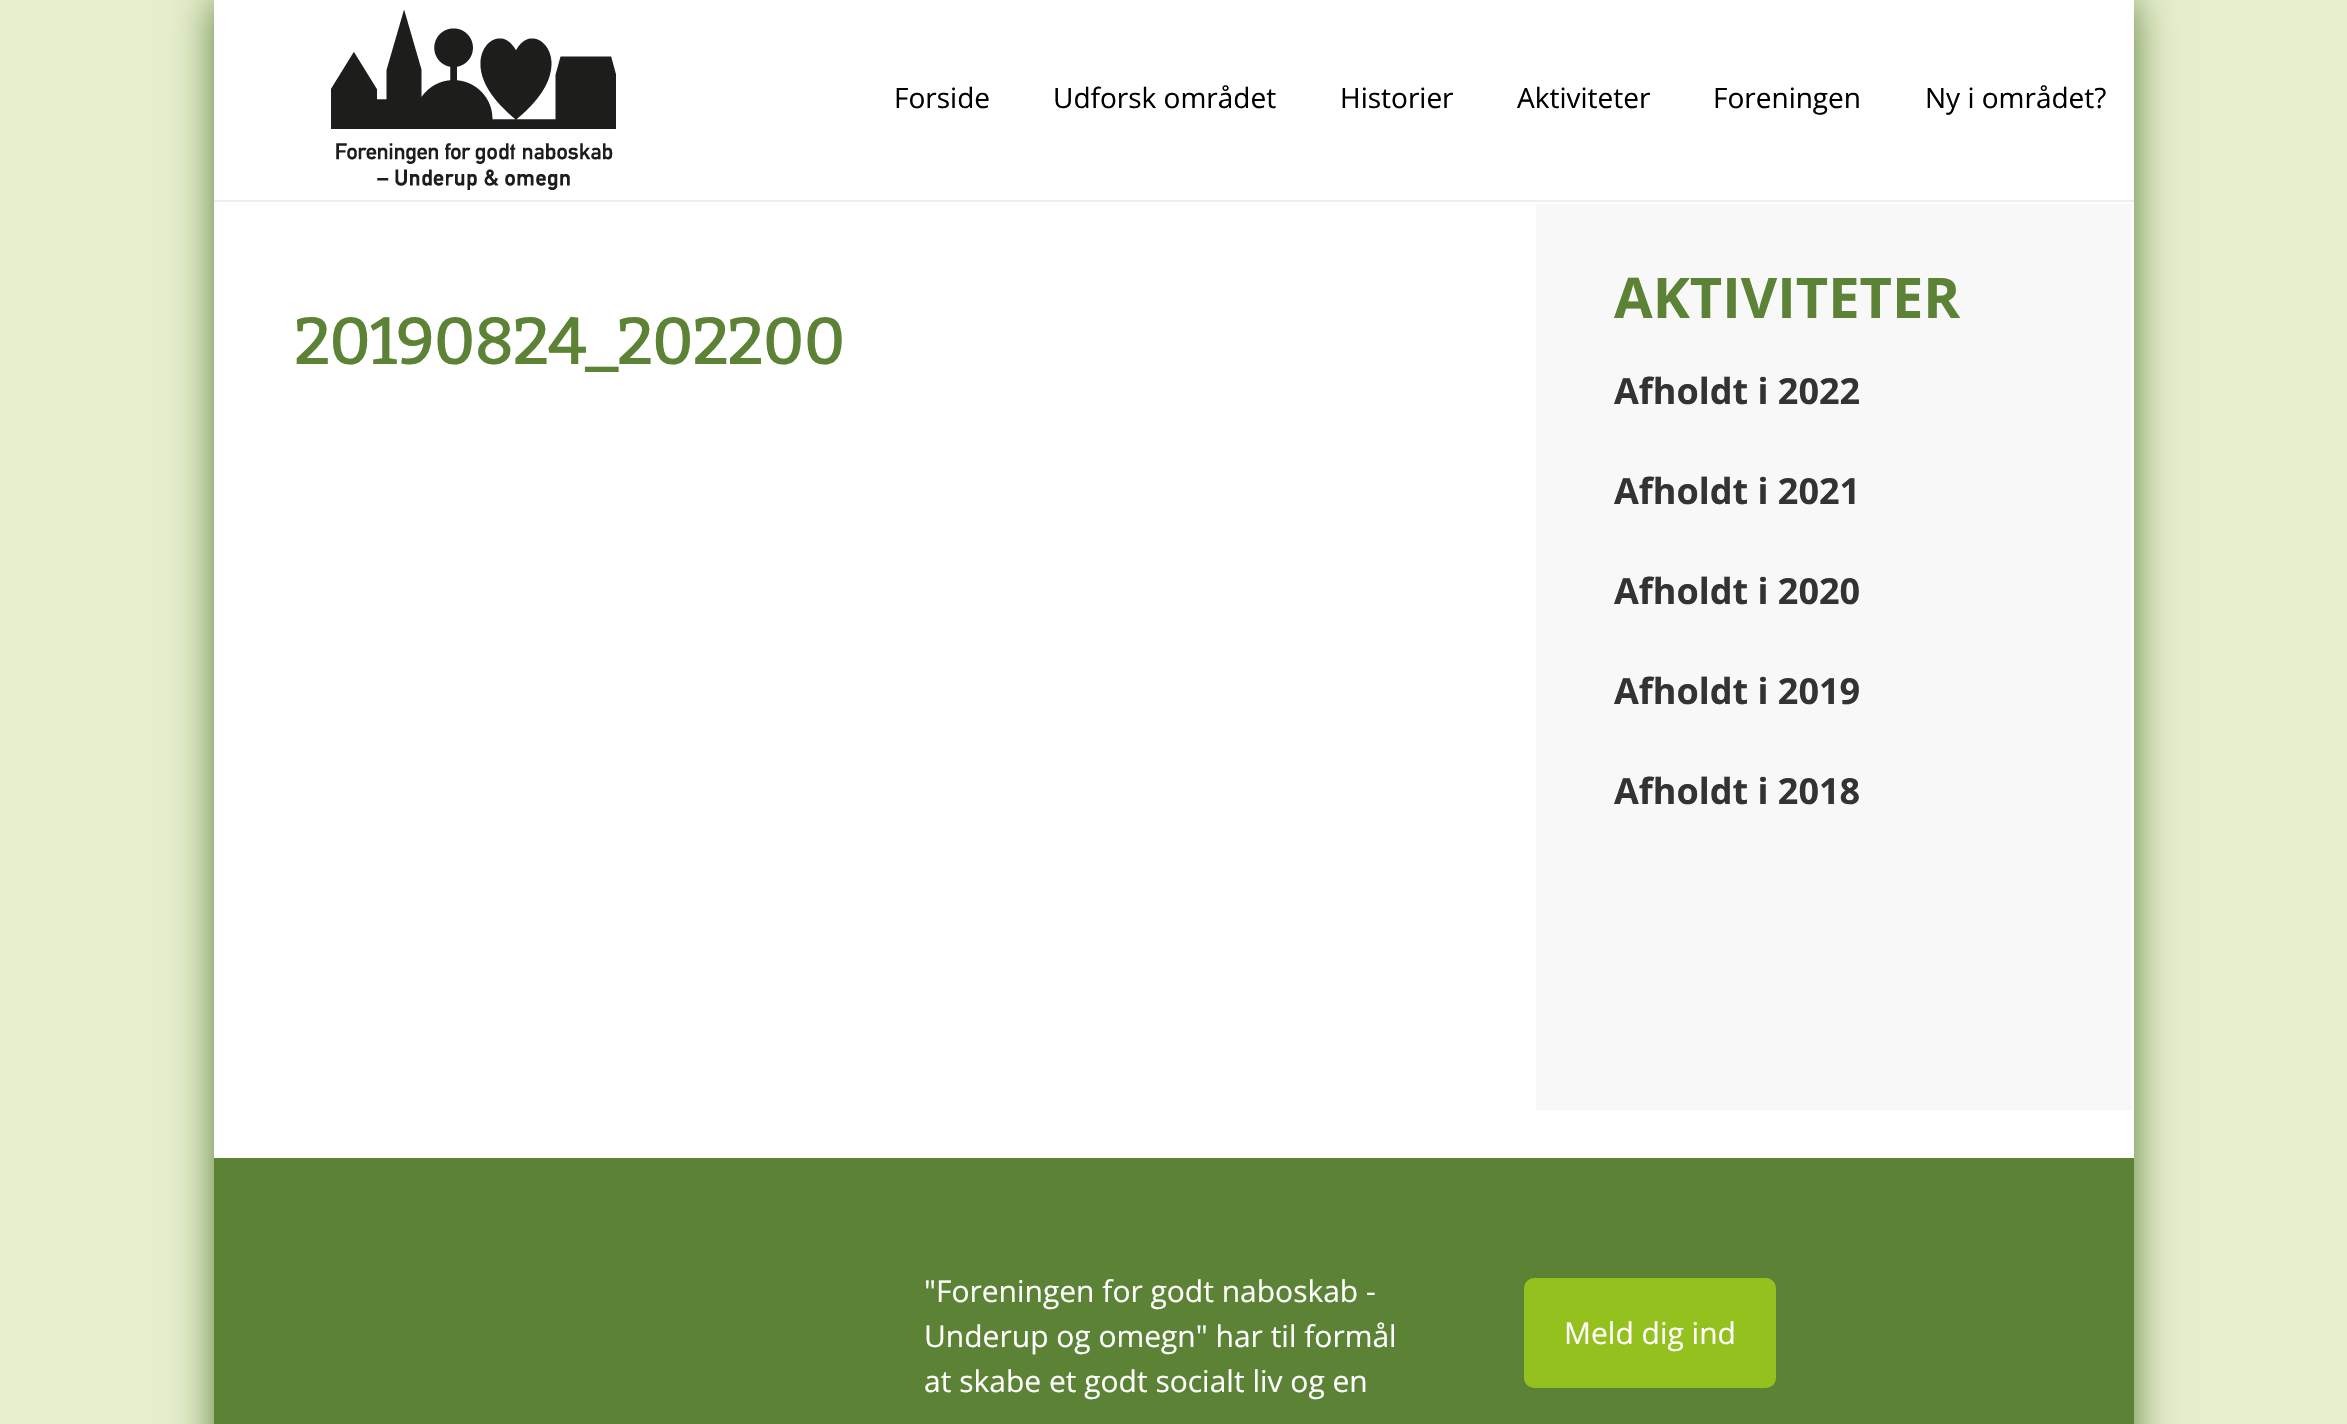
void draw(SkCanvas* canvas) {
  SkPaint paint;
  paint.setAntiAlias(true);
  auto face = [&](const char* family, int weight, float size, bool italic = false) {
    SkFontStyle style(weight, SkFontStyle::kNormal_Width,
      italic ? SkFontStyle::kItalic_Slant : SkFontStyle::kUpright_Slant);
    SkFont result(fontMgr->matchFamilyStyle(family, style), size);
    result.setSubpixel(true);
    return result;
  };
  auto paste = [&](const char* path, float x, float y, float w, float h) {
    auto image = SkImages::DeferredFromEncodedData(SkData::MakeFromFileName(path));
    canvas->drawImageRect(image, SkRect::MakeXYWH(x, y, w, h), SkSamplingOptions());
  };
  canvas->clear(0xffe6eecd);
  paint.setColor(0xff5c813a);
  paint.setMaskFilter(SkMaskFilter::MakeBlur(kNormal_SkBlurStyle, 20));
  canvas->drawRect(SkRect::MakeXYWH(214, 0, 1920, 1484), paint);
  paint.setMaskFilter(nullptr);
  paint.setColor(0xffffffff);
  canvas->drawRect(SkRect::MakeXYWH(214, 0, 1920, 200), paint);
  paint.setColor(0xffeeeeee);
  canvas->drawRect(SkRect::MakeXYWH(214, 200, 1920, 2), paint);
  paste("img/1.png", 331, 10, 285, 180);
  {
    const struct { float x, y, w, h; SkColor color; } items[] = {
      {214, 202, 1920, 956, 0xffffffff},
      {1536, 204, 596, 906, 0xfff8f8f8},
      {214, 1158, 1920, 266, 0xff5b8235},
    };
    for (auto [x, y, w, h, color] : items) {
      paint.setColor(color);
      canvas->drawRect(SkRect::MakeXYWH(x, y, w, h), paint);
    }
  }
  paint.setColor(0xff95c11f);
  canvas->drawRoundRect(SkRect::MakeXYWH(1524, 1278, 252, 110), 10, 10, paint);
  auto f0 = face("Open Sans", 400, 28);
  paint.setColor(0xff000000);
  {
    const struct { const char* s; float x, y; } items[] = {
      {"Forside", 894, 108},
      {"Udforsk området", 1053, 108},
      {"Historier", 1340, 108},
      {"Aktiviteter", 1517, 108},
      {"Foreningen", 1713, 108},
      {"Ny i området?", 1925, 108},
    };
    for (auto [s, x, y] : items) {
      canvas->drawString(s, x, y, f0, paint);
    }
  }
  auto f1 = face("Bitter", 700, 64);
  paint.setColor(0xff5b8235);
  canvas->drawString("20190824_202200", 294, 364, f1, paint);
  auto f2 = face("Open Sans", 700, 56);
  canvas->drawString("AKTIVITETER", 1614, 318, f2, paint);
  auto f3 = face("Open Sans", 700, 36);
  paint.setColor(0xff333333);
  {
    const struct { const char* s; float x, y; } items[] = {
      {"Afholdt i 2022", 1614, 404},
      {"Afholdt i 2021", 1614, 504},
      {"Afholdt i 2020", 1614, 604},
      {"Afholdt i 2019", 1614, 704},
      {"Afholdt i 2018", 1614, 804},
    };
    for (auto [s, x, y] : items) {
      canvas->drawString(s, x, y, f3, paint);
    }
  }
  auto f4 = face("Open Sans", 400, 30);
  paint.setColor(0xffffffff);
  {
    const struct { const char* s; float x, y; } items[] = {
      {"\"Foreningen for godt naboskab -", 924, 1302},
      {"Underup og omegn\" har til formål", 924, 1347},
      {"at skabe et godt socialt liv og en", 924, 1392},
      {"Meld dig ind", 1564, 1344},
    };
    for (auto [s, x, y] : items) {
      canvas->drawString(s, x, y, f4, paint);
    }
  }
}
